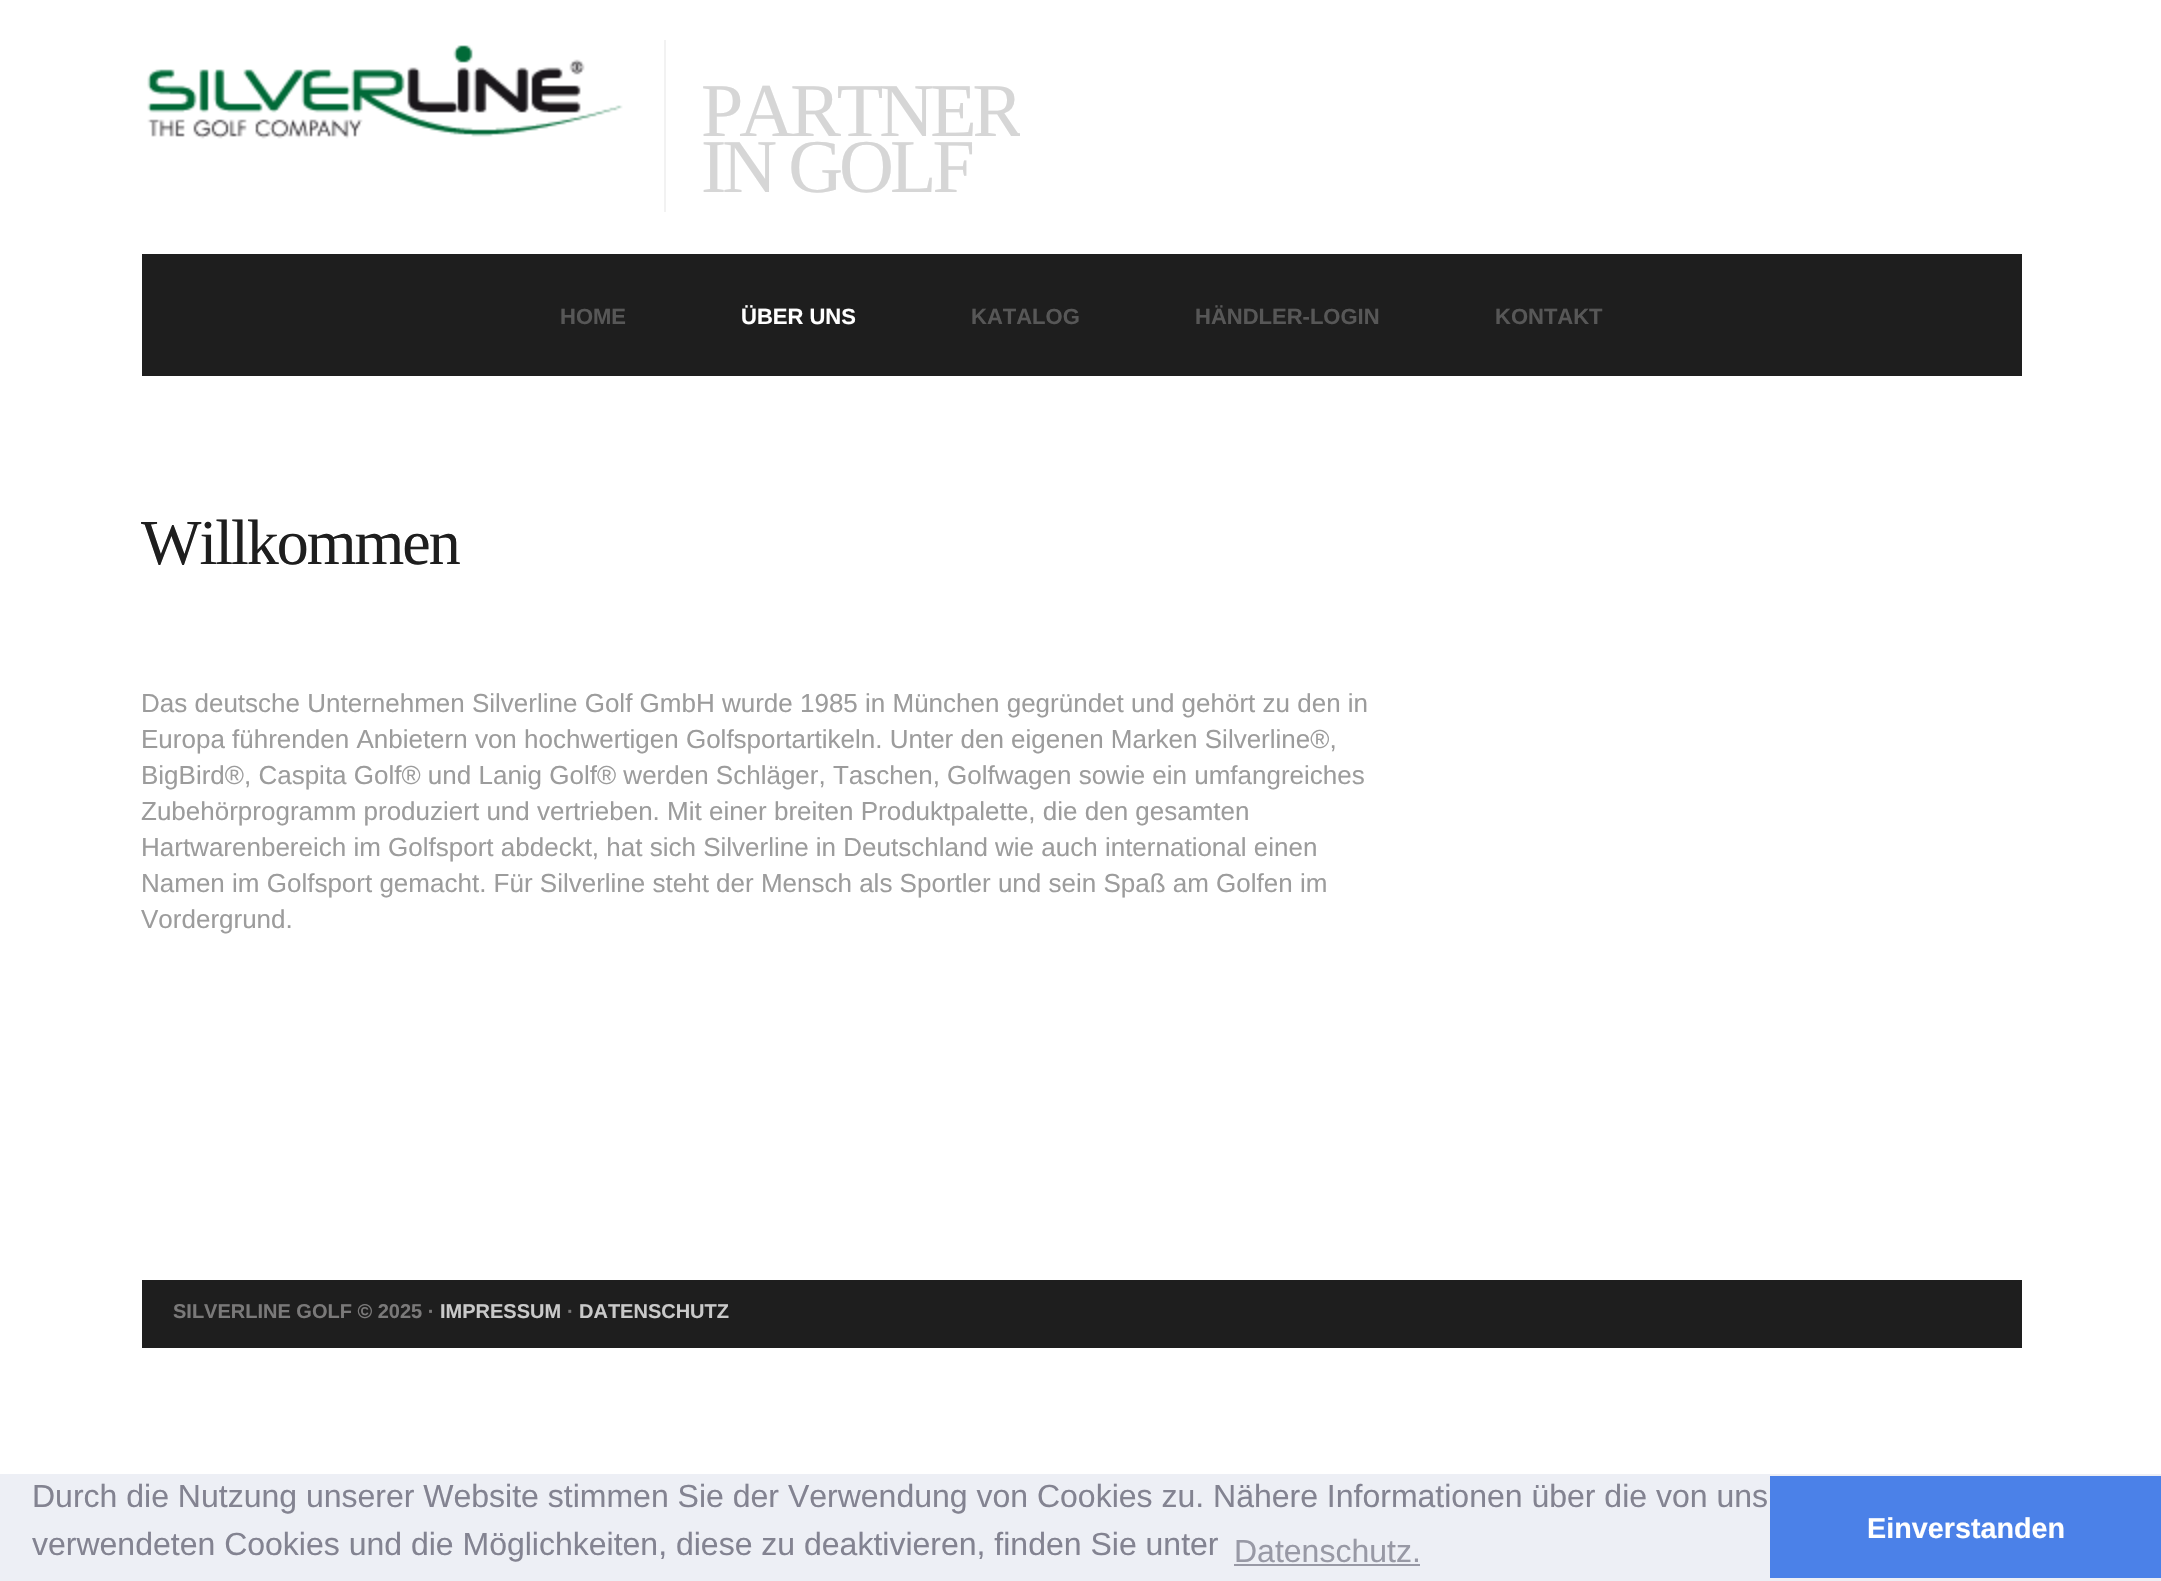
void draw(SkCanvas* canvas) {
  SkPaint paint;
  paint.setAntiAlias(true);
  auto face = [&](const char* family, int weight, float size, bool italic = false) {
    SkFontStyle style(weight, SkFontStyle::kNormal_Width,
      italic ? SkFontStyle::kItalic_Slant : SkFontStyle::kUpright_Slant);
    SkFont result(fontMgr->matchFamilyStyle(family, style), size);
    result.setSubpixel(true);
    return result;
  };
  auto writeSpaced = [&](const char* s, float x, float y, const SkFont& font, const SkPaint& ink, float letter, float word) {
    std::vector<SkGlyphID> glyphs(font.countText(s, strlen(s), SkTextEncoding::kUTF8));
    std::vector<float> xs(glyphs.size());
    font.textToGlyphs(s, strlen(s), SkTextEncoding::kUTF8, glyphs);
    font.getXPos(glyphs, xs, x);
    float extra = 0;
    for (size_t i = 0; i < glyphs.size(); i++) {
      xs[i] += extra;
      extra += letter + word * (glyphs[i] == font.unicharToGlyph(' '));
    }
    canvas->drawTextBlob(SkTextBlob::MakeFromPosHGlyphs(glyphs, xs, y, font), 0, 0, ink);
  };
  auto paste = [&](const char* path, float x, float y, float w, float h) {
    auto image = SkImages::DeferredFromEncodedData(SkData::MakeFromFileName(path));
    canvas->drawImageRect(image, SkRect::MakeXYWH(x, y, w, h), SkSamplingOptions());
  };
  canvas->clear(0xffffffff);
  paste("img/1.png", 147, 45, 476, 94);
  {
    const struct { float x, y, w, h; SkColor color; } items[] = {
      {664, 40, 2, 172, 0xfff2f2f2},
      {142, 254, 1880, 122, 0xff1e1e1e},
      {142, 1280, 1880, 68, 0xff1e1e1e},
      {0, 1474, 2161, 107, 0xffedeff5},
      {1234, 1564, 186, 2, 0xff9899a5},
      {1770, 1476, 391, 102, 0xff4b81e8},
    };
    for (auto [x, y, w, h, color] : items) {
      paint.setColor(color);
      canvas->drawRect(SkRect::MakeXYWH(x, y, w, h), paint);
    }
  }
  canvas->save();
  canvas->clipRect(SkRect::MakeXYWH(142, 40, 878, 184));
  auto f0 = face("Liberation Serif", 400, 76);
  paint.setColor(0xffd6d6d6);
  writeSpaced("PARTNER", 701, 136, f0, paint, -4, 0);
  canvas->restore();
  writeSpaced("IN GOLF", 701, 192, f0, paint, -4, 0);
  auto f1 = face("Liberation Sans", 700, 22);
  paint.setColor(0xff575757);
  canvas->drawString("HOME", 560, 324, f1, paint);
  paint.setColor(0xffffffff);
  canvas->drawString("ÜBER UNS", 741, 324, f1, paint);
  paint.setColor(0xff575757);
  {
    const struct { const char* s; float x, y; } items[] = {
      {"KATALOG", 971, 324},
      {"HÄNDLER-LOGIN", 1195, 324},
      {"KONTAKT", 1495, 324},
    };
    for (auto [s, x, y] : items) {
      canvas->drawString(s, x, y, f1, paint);
    }
  }
  auto f2 = face("Liberation Serif", 400, 64);
  paint.setColor(0xff1e1e1e);
  writeSpaced("Willkommen", 141, 564, f2, paint, -2, 0);
  auto f3 = face("Liberation Sans", 400, 26);
  paint.setColor(0xff9c9c9c);
  {
    const struct { const char* s; float x, y; } items[] = {
      {"Das deutsche Unternehmen Silverline Golf GmbH wurde 1985 in München gegründet und gehört zu den in", 141, 712},
      {"Europa führenden Anbietern von hochwertigen Golfsportartikeln. Unter den eigenen Marken Silverline®,", 141, 748},
      {"BigBird®, Caspita Golf® und Lanig Golf® werden Schläger, Taschen, Golfwagen sowie ein umfangreiches", 141, 784},
      {"Zubehörprogramm produziert und vertrieben. Mit einer breiten Produktpalette, die den gesamten", 141, 820},
      {"Hartwarenbereich im Golfsport abdeckt, hat sich Silverline in Deutschland wie auch international einen", 141, 856},
      {"Namen im Golfsport gemacht. Für Silverline steht der Mensch als Sportler und sein Spaß am Golfen im", 141, 892},
      {"Vordergrund.", 141, 928},
    };
    for (auto [s, x, y] : items) {
      canvas->drawString(s, x, y, f3, paint);
    }
  }
  auto f4 = face("Liberation Sans", 700, 20);
  paint.setColor(0xff7a7979);
  canvas->drawString("SILVERLINE GOLF © 2025 ·", 173, 1318, f4, paint);
  paint.setColor(0xffc9c9c9);
  canvas->drawString("IMPRESSUM", 440, 1318, f4, paint);
  paint.setColor(0xff7a7979);
  canvas->drawString("·", 567, 1318, f4, paint);
  paint.setColor(0xffc9c9c9);
  canvas->drawString("DATENSCHUTZ", 579, 1318, f4, paint);
  auto f5 = face("Liberation Sans", 400, 32);
  paint.setColor(0xff838391);
  canvas->drawString("Durch die Nutzung unserer Website stimmen Sie der Verwendung von Cookies zu. Nähere Informationen über die von uns", 32, 1507, f5, paint);
  canvas->drawString("verwendeten Cookies und die Möglichkeiten, diese zu deaktivieren, finden Sie unter", 32, 1555, f5, paint);
  paint.setColor(0xff9899a5);
  canvas->drawString("Datenschutz.", 1234, 1562, f5, paint);
  auto f6 = face("Liberation Sans", 700, 28.75f);
  paint.setColor(0xffffffff);
  canvas->drawString("Einverstanden", 1867, 1538, f6, paint);
}
